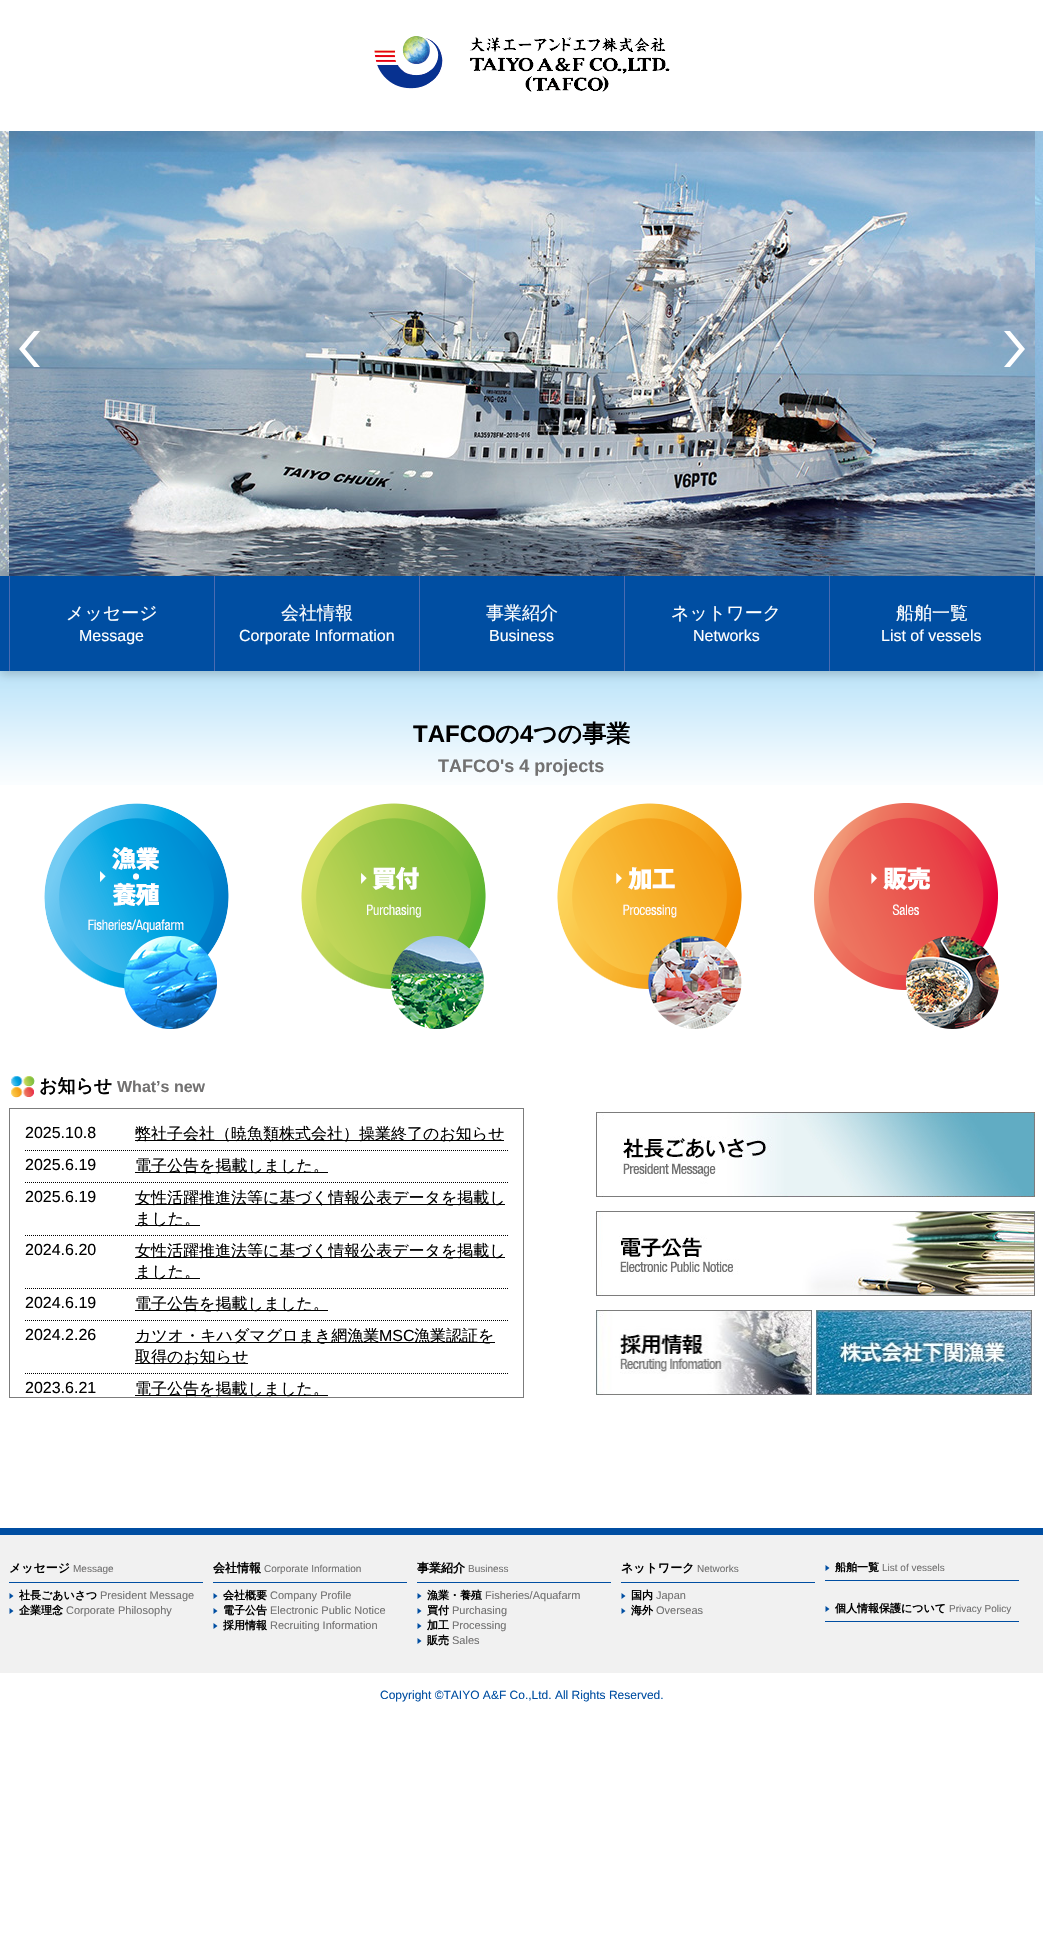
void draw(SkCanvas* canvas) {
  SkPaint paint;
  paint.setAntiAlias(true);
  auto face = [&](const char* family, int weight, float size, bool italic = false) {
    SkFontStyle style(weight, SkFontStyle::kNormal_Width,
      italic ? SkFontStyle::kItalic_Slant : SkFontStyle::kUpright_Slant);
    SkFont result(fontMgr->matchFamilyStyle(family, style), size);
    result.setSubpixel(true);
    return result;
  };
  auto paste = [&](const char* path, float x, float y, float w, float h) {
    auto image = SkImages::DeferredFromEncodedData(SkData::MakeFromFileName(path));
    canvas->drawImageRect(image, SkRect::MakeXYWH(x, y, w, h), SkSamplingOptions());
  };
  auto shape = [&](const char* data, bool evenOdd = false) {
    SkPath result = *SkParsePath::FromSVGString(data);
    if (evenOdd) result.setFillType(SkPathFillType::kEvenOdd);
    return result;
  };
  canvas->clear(0xffffffff);
  paste("img/2.png", 0, 131, 9, 445);
  paste("img/3.png", 9, 131, 1026, 445);
  paste("img/4.png", 1035, 131, 8, 445);
  canvas->save();
  canvas->clipRect(SkRect::MakeXYWH(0, 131, 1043, 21));
  paint.setColor(0x1a000000);
  paint.setMaskFilter(SkMaskFilter::MakeBlur(kNormal_SkBlurStyle, 7.5f));
  canvas->drawRect(SkRect::MakeXYWH(0, 15, 1043, 131), paint);
  paint.setMaskFilter(nullptr);
  canvas->restore();
  paste("img/1.png", 374, 36, 296, 56);
  paint.setColor(0x80ffffff);
  canvas->drawRect(SkRect::MakeXYWH(0, 131, 9, 445), paint);
  paste("img/5.png", 19, 331, 21, 36);
  paste("img/6.png", 1004, 331, 21, 36);
  canvas->drawRect(SkRect::MakeXYWH(1035, 131, 8, 447), paint);
  paste("img/7.png", 0, 671, 1043, 114);
  paint.setColor(0x33000000);
  paint.setMaskFilter(SkMaskFilter::MakeBlur(kNormal_SkBlurStyle, 5));
  canvas->drawRect(SkRect::MakeXYWH(0, 579, 1043, 95), paint);
  paint.setMaskFilter(nullptr);
  {
    const struct { float x, y, w, h; SkColor color; } items[] = {
      {0, 576, 1043, 95, 0xff004ea2},
      {9, 576, 1, 95, 0xff4a6bb2},
      {214, 576, 1, 95, 0xff4a6bb2},
      {419, 576, 1, 95, 0xff4a6bb2},
      {624, 576, 1, 95, 0xff4a6bb2},
      {829, 576, 1, 95, 0xff4a6bb2},
      {1034, 576, 1, 95, 0xff4a6bb2},
    };
    for (auto [x, y, w, h, color] : items) {
      paint.setColor(color);
      canvas->drawRect(SkRect::MakeXYWH(x, y, w, h), paint);
    }
  }
  paste("img/8.png", 44, 803, 185, 226);
  paste("img/9.png", 301, 803, 185, 226);
  paste("img/10.png", 557, 803, 185, 226);
  paste("img/11.png", 814, 803, 185, 226);
  paste("img/12.png", 11, 1076, 24, 22);
  paint.setStroke(true);
  paint.setStrokeWidth(1);
  paint.setColor(0xff7c7c7c);
  canvas->drawRect(SkRect::MakeXYWH(9.5f, 1108.5f, 514, 289), paint);
  paint.setColor(0xff000000);
  paint.setPathEffect(SkDashPathEffect::Make({{1, 1}}, 0));
  canvas->drawPath(shape("M25 1150.5H508"), paint);
  paint.setPathEffect(nullptr);
  paint.setStroke(false);
  canvas->drawRect(SkRect::MakeXYWH(135, 1140, 369, 1), paint);
  paint.setStroke(true);
  paint.setPathEffect(SkDashPathEffect::Make({{1, 1}}, 0));
  canvas->drawPath(shape("M25 1182.5H508"), paint);
  paint.setPathEffect(nullptr);
  paint.setStroke(false);
  canvas->drawRect(SkRect::MakeXYWH(135, 1172, 193, 1), paint);
  paint.setStroke(true);
  paint.setPathEffect(SkDashPathEffect::Make({{1, 1}}, 0));
  canvas->drawPath(shape("M25 1235.5H508"), paint);
  paint.setPathEffect(nullptr);
  paint.setStroke(false);
  canvas->drawRect(SkRect::MakeXYWH(135, 1204, 370, 1), paint);
  canvas->drawRect(SkRect::MakeXYWH(135, 1225, 65, 1), paint);
  paint.setStroke(true);
  paint.setPathEffect(SkDashPathEffect::Make({{1, 1}}, 0));
  canvas->drawPath(shape("M25 1288.5H508"), paint);
  paint.setPathEffect(nullptr);
  paint.setStroke(false);
  canvas->drawRect(SkRect::MakeXYWH(135, 1257, 370, 1), paint);
  canvas->drawRect(SkRect::MakeXYWH(135, 1278, 65, 1), paint);
  paint.setStroke(true);
  paint.setPathEffect(SkDashPathEffect::Make({{1, 1}}, 0));
  canvas->drawPath(shape("M25 1320.5H508"), paint);
  paint.setPathEffect(nullptr);
  paint.setStroke(false);
  canvas->drawRect(SkRect::MakeXYWH(135, 1310, 193, 1), paint);
  paint.setStroke(true);
  paint.setPathEffect(SkDashPathEffect::Make({{1, 1}}, 0));
  canvas->drawPath(shape("M25 1373.5H508"), paint);
  paint.setPathEffect(nullptr);
  paint.setStroke(false);
  {
    const struct { float x, y, w, h; SkColor color; } items[] = {
      {135, 1342, 360, 1, 0xff000000},
      {135, 1363, 113, 1, 0xff000000},
      {135, 1395, 193, 1, 0xff000000},
    };
    for (auto [x, y, w, h, color] : items) {
      paint.setColor(color);
      canvas->drawRect(SkRect::MakeXYWH(x, y, w, h), paint);
    }
  }
  paste("img/13.png", 596, 1112, 439, 85);
  paste("img/14.png", 596, 1211, 439, 85);
  paste("img/15.png", 596, 1310, 216, 85);
  paste("img/16.png", 816, 1310, 216, 85);
  {
    const struct { float x, y, w, h; SkColor color; } items[] = {
      {0, 1535, 1043, 138, 0xfff1f1f1},
      {0, 1528, 1043, 7, 0xff004ea2},
      {9, 1582, 194, 1, 0xff004ea2},
    };
    for (auto [x, y, w, h, color] : items) {
      paint.setColor(color);
      canvas->drawRect(SkRect::MakeXYWH(x, y, w, h), paint);
    }
  }
  canvas->drawPath(shape("M9.5 1599V1593L13.5 1596Z"), paint);
  canvas->drawPath(shape("M9.5 1614V1608L13.5 1611Z"), paint);
  canvas->drawRect(SkRect::MakeXYWH(213, 1582, 194, 1), paint);
  canvas->drawPath(shape("M213.5 1599V1593L217.5 1596Z"), paint);
  canvas->drawPath(shape("M213.5 1614V1608L217.5 1611Z"), paint);
  canvas->drawPath(shape("M213.5 1629V1623L217.5 1626Z"), paint);
  canvas->drawRect(SkRect::MakeXYWH(417, 1582, 194, 1), paint);
  canvas->drawPath(shape("M417.5 1599V1593L421.5 1596Z"), paint);
  canvas->drawPath(shape("M417.5 1614V1608L421.5 1611Z"), paint);
  canvas->drawPath(shape("M417.5 1629V1623L421.5 1626Z"), paint);
  canvas->drawPath(shape("M417.5 1644V1638L421.5 1641Z"), paint);
  canvas->drawRect(SkRect::MakeXYWH(621, 1582, 194, 1), paint);
  canvas->drawPath(shape("M621.5 1599V1593L625.5 1596Z"), paint);
  canvas->drawPath(shape("M621.5 1614V1608L625.5 1611Z"), paint);
  canvas->drawRect(SkRect::MakeXYWH(825, 1580, 194, 1), paint);
  canvas->drawPath(shape("M825.5 1571V1565L829.5 1568Z"), paint);
  canvas->drawRect(SkRect::MakeXYWH(825, 1621, 194, 1), paint);
  canvas->drawPath(shape("M825.5 1612V1606L829.5 1609Z"), paint);
  auto f0 = face("WenQuanYi Zen Hei", 500, 18);
  paint.setColor(0xffffffff);
  canvas->drawString("メッセージ", 66, 619, f0, paint);
  auto f1 = face("Liberation Sans", 400, 16);
  canvas->drawString("Message", 79, 641, f1, paint);
  canvas->drawString("会社情報", 281, 619, f0, paint);
  canvas->drawString("Corporate Information", 239, 641, f1, paint);
  canvas->drawString("事業紹介", 486, 619, f0, paint);
  canvas->drawString("Business", 489, 641, f1, paint);
  canvas->drawString("ネットワーク", 671, 619, f0, paint);
  canvas->drawString("Networks", 693, 641, f1, paint);
  canvas->drawString("船舶一覧", 896, 619, f0, paint);
  canvas->drawString("List of vessels", 881, 641, f1, paint);
  auto f2 = face("Liberation Sans", 700, 24);
  paint.setColor(0xff000000);
  canvas->drawString("TAFCO", 413, 742, f2, paint);
  auto f3 = face("WenQuanYi Zen Hei", 700, 24);
  canvas->drawString("の", 495, 742, f3, paint);
  canvas->drawString("4", 520, 742, f2, paint);
  canvas->drawString("つの事業", 533, 742, f3, paint);
  auto f4 = face("Liberation Sans", 700, 18);
  paint.setColor(0xff727171);
  canvas->drawString("TAFCO's 4 projects", 438, 772, f4, paint);
  auto f5 = face("WenQuanYi Zen Hei", 700, 18);
  paint.setColor(0xff000000);
  canvas->drawString("お知らせ", 39, 1092, f5, paint);
  auto f6 = face("Liberation Sans", 700, 16);
  paint.setColor(0xff727171);
  canvas->drawString("What’s new", 117, 1092, f6, paint);
  paint.setColor(0xff000000);
  canvas->drawString("2025.10.8", 25, 1138, f1, paint);
  auto f7 = face("WenQuanYi Zen Hei", 500, 16);
  canvas->drawString("弊社子会社（暁魚類株式会社）操業終了のお知らせ", 135, 1139, f7, paint);
  canvas->drawString("2025.6.19", 25, 1170, f1, paint);
  canvas->drawString("電子公告を掲載しました。", 135, 1171, f7, paint);
  canvas->drawString("2025.6.19", 25, 1202, f1, paint);
  canvas->drawString("女性活躍推進法等に基づく情報公表データを掲載し", 135, 1203, f7, paint);
  canvas->drawString("ました。", 135, 1224, f7, paint);
  canvas->drawString("2024.6.20", 25, 1255, f1, paint);
  canvas->drawString("女性活躍推進法等に基づく情報公表データを掲載し", 135, 1256, f7, paint);
  canvas->drawString("ました。", 135, 1277, f7, paint);
  canvas->drawString("2024.6.19", 25, 1308, f1, paint);
  canvas->drawString("電子公告を掲載しました。", 135, 1309, f7, paint);
  canvas->drawString("2024.2.26", 25, 1340, f1, paint);
  canvas->drawString("カツオ・キハダマグロまき網漁業", 135, 1341, f7, paint);
  canvas->drawString("MSC", 379, 1341, f1, paint);
  canvas->drawString("漁業認証を", 414, 1341, f7, paint);
  canvas->drawString("取得のお知らせ", 135, 1362, f7, paint);
  canvas->drawString("2023.6.21", 25, 1393, f1, paint);
  canvas->drawString("電子公告を掲載しました。", 135, 1394, f7, paint);
  auto f8 = face("WenQuanYi Zen Hei", 700, 12);
  canvas->drawString("メッセージ", 9, 1572, f8, paint);
  auto f9 = face("Liberation Sans", 400, 10);
  paint.setColor(0xff727171);
  canvas->drawString("Message", 73, 1572, f9, paint);
  auto f10 = face("WenQuanYi Zen Hei", 700, 11);
  paint.setColor(0xff000000);
  canvas->drawString("社長ごあいさつ", 19, 1599, f10, paint);
  auto f11 = face("Liberation Sans", 400, 11);
  paint.setColor(0xff727171);
  canvas->drawString("President Message", 100, 1599, f11, paint);
  paint.setColor(0xff000000);
  canvas->drawString("企業理念", 19, 1614, f10, paint);
  paint.setColor(0xff727171);
  canvas->drawString("Corporate Philosophy", 66, 1614, f11, paint);
  paint.setColor(0xff000000);
  canvas->drawString("会社情報", 213, 1572, f8, paint);
  paint.setColor(0xff727171);
  canvas->drawString("Corporate Information", 264, 1572, f9, paint);
  paint.setColor(0xff000000);
  canvas->drawString("会社概要", 223, 1599, f10, paint);
  paint.setColor(0xff727171);
  canvas->drawString("Company Profile", 270, 1599, f11, paint);
  paint.setColor(0xff000000);
  canvas->drawString("電子公告", 223, 1614, f10, paint);
  paint.setColor(0xff727171);
  canvas->drawString("Electronic Public Notice", 270, 1614, f11, paint);
  paint.setColor(0xff000000);
  canvas->drawString("採用情報", 223, 1629, f10, paint);
  paint.setColor(0xff727171);
  canvas->drawString("Recruiting Information", 270, 1629, f11, paint);
  paint.setColor(0xff000000);
  canvas->drawString("事業紹介", 417, 1572, f8, paint);
  paint.setColor(0xff727171);
  canvas->drawString("Business", 468, 1572, f9, paint);
  paint.setColor(0xff000000);
  canvas->drawString("漁業・養殖", 427, 1599, f10, paint);
  paint.setColor(0xff727171);
  canvas->drawString("Fisheries/Aquafarm", 485, 1599, f11, paint);
  paint.setColor(0xff000000);
  canvas->drawString("買付", 427, 1614, f10, paint);
  paint.setColor(0xff727171);
  canvas->drawString("Purchasing", 452, 1614, f11, paint);
  paint.setColor(0xff000000);
  canvas->drawString("加工", 427, 1629, f10, paint);
  paint.setColor(0xff727171);
  canvas->drawString("Processing", 452, 1629, f11, paint);
  paint.setColor(0xff000000);
  canvas->drawString("販売", 427, 1644, f10, paint);
  paint.setColor(0xff727171);
  canvas->drawString("Sales", 452, 1644, f11, paint);
  paint.setColor(0xff000000);
  canvas->drawString("ネットワーク", 621, 1572, f8, paint);
  paint.setColor(0xff727171);
  canvas->drawString("Networks", 697, 1572, f9, paint);
  paint.setColor(0xff000000);
  canvas->drawString("国内", 631, 1599, f10, paint);
  paint.setColor(0xff727171);
  canvas->drawString("Japan", 656, 1599, f11, paint);
  paint.setColor(0xff000000);
  canvas->drawString("海外", 631, 1614, f10, paint);
  paint.setColor(0xff727171);
  canvas->drawString("Overseas", 656, 1614, f11, paint);
  paint.setColor(0xff000000);
  canvas->drawString("船舶一覧", 835, 1571, f10, paint);
  paint.setColor(0xff727171);
  canvas->drawString("List of vessels", 882, 1571, f9, paint);
  paint.setColor(0xff000000);
  canvas->drawString("個人情報保護について", 835, 1612, f10, paint);
  paint.setColor(0xff727171);
  canvas->drawString("Privacy Policy", 949, 1612, f9, paint);
  auto f12 = face("Liberation Sans", 400, 12);
  paint.setColor(0xff004ea2);
  canvas->drawString("Copyright ©TAIYO A&F Co.,Ltd. All Rights Reserved.", 380, 1699, f12, paint);
}
